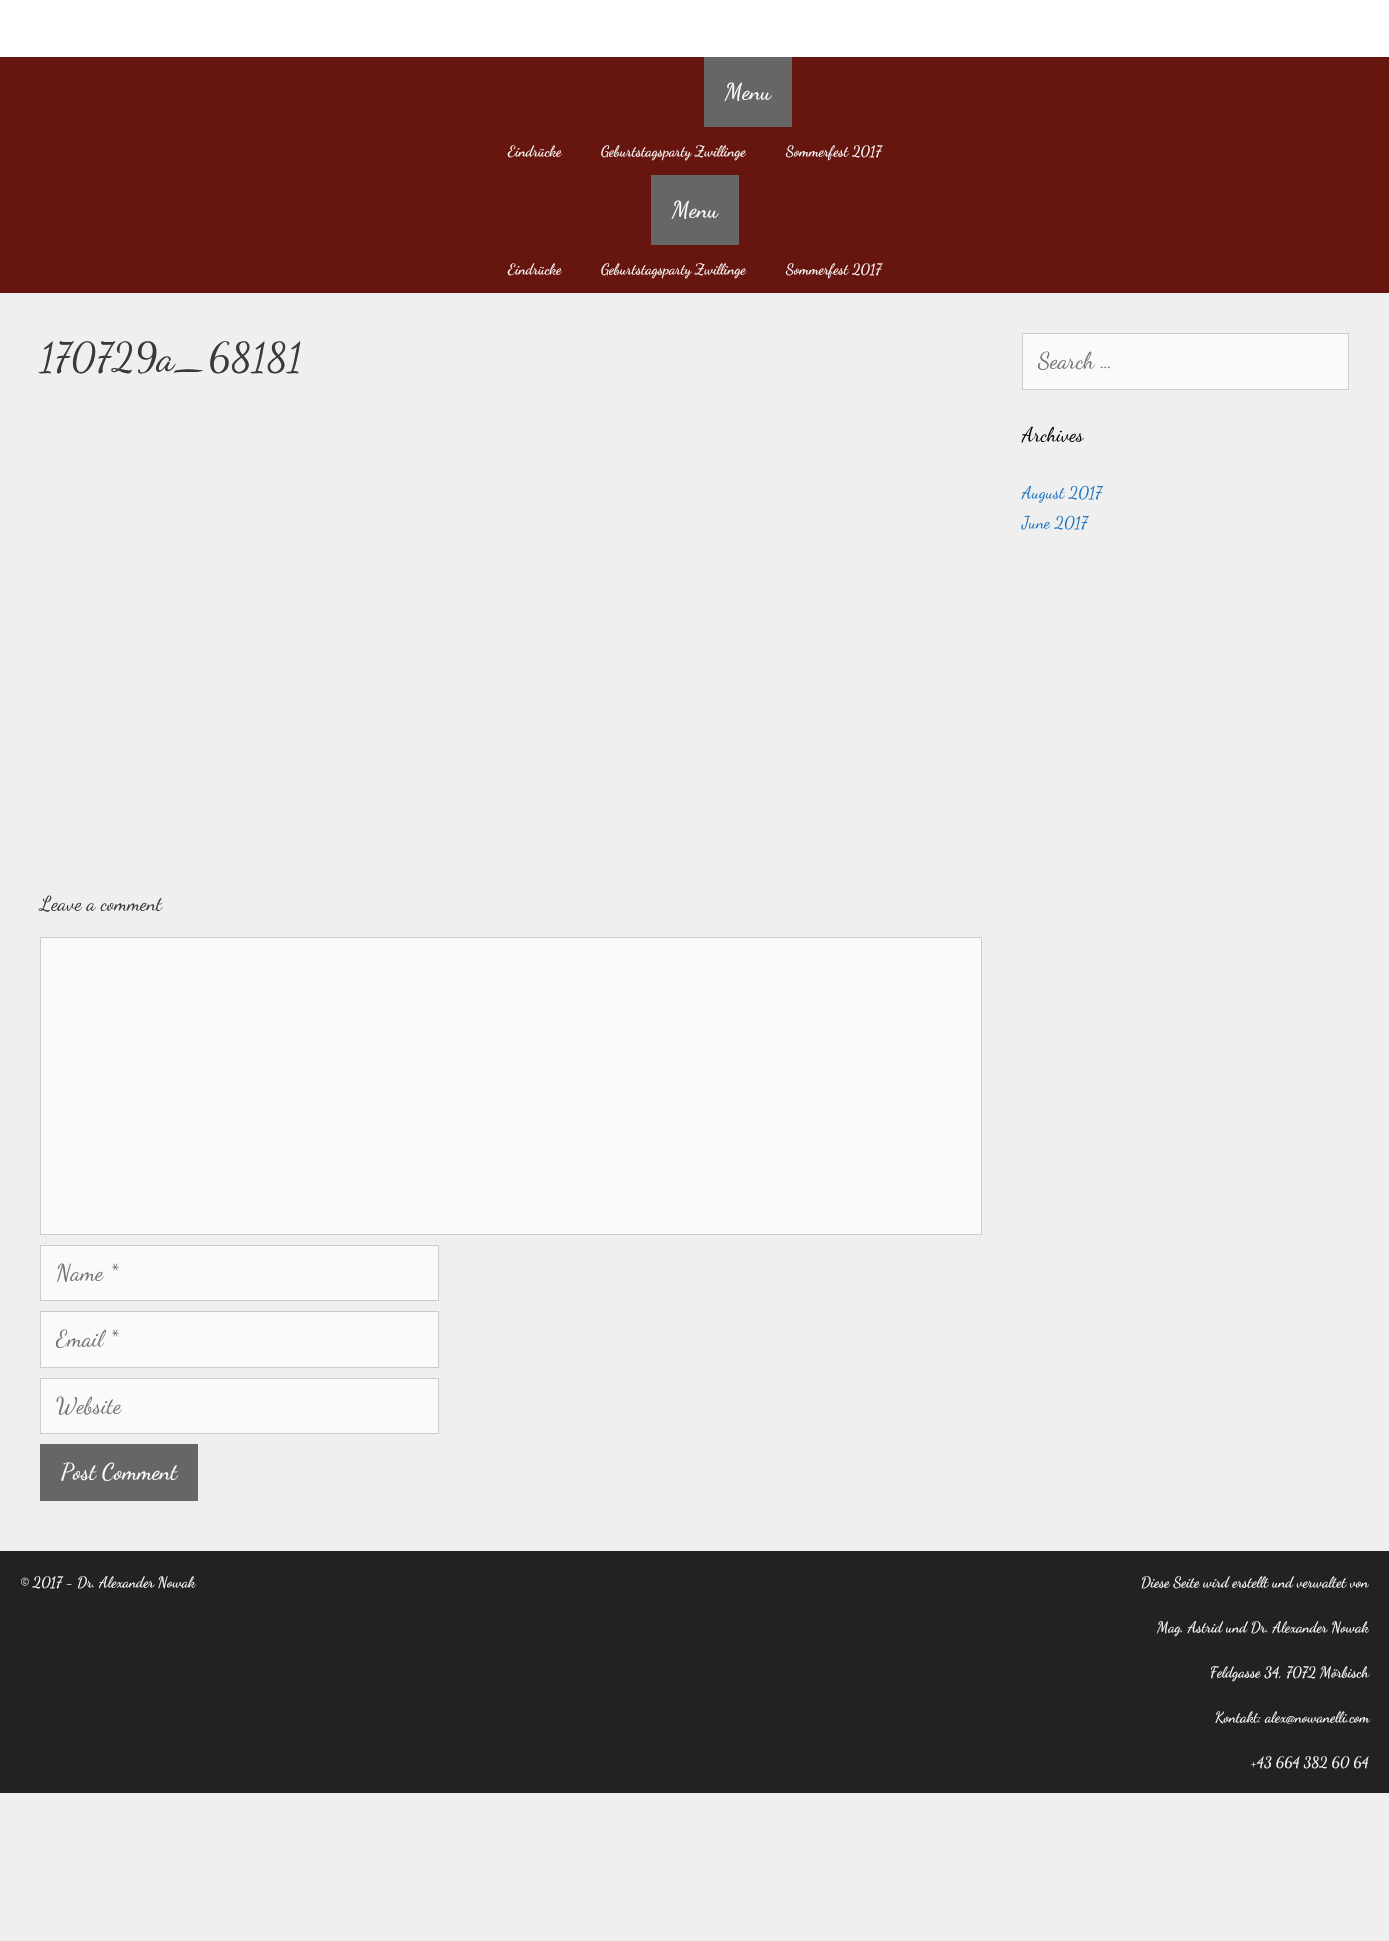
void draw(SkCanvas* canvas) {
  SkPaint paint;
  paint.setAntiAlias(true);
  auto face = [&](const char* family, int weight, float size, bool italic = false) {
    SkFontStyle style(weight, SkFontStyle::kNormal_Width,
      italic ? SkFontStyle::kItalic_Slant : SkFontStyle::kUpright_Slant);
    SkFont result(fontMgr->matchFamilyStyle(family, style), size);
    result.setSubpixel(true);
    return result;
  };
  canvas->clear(0xffefefef);
  {
    const struct { float x, y, w, h; SkColor color; } items[] = {
      {0, 0, 1389, 57, 0xffffffff},
      {0, 57, 1389, 236, 0xff66160e},
      {704, 57, 88, 70, 0xff666666},
      {651, 175, 88, 70, 0xff666666},
    };
    for (auto [x, y, w, h, color] : items) {
      paint.setColor(color);
      canvas->drawRect(SkRect::MakeXYWH(x, y, w, h), paint);
    }
  }
  paint.setColor(0xfffafafa);
  canvas->drawRect(SkRect::MakeXYWH(40.5f, 937.5f, 941, 297), paint);
  paint.setStroke(true);
  paint.setStrokeWidth(1);
  paint.setColor(0xffcccccc);
  canvas->drawRect(SkRect::MakeXYWH(40.5f, 937.5f, 941, 297), paint);
  paint.setStroke(false);
  paint.setColor(0xfffafafa);
  canvas->drawRect(SkRect::MakeXYWH(40.5f, 1245.5f, 398, 55), paint);
  paint.setStroke(true);
  paint.setColor(0xffcccccc);
  canvas->drawRect(SkRect::MakeXYWH(40.5f, 1245.5f, 398, 55), paint);
  paint.setStroke(false);
  paint.setColor(0xfffafafa);
  canvas->drawRect(SkRect::MakeXYWH(40.5f, 1311.5f, 398, 56), paint);
  paint.setStroke(true);
  paint.setColor(0xffcccccc);
  canvas->drawRect(SkRect::MakeXYWH(40.5f, 1311.5f, 398, 56), paint);
  paint.setStroke(false);
  paint.setColor(0xfffafafa);
  canvas->drawRect(SkRect::MakeXYWH(40.5f, 1378.5f, 398, 55), paint);
  paint.setStroke(true);
  paint.setColor(0xffcccccc);
  canvas->drawRect(SkRect::MakeXYWH(40.5f, 1378.5f, 398, 55), paint);
  paint.setStroke(false);
  paint.setColor(0xff666666);
  canvas->drawRect(SkRect::MakeXYWH(40, 1444, 158, 57), paint);
  paint.setColor(0xfffafafa);
  canvas->drawRect(SkRect::MakeXYWH(1022.5f, 333.5f, 326, 56), paint);
  paint.setStroke(true);
  paint.setColor(0xffcccccc);
  canvas->drawRect(SkRect::MakeXYWH(1022.5f, 333.5f, 326, 56), paint);
  paint.setStroke(false);
  paint.setColor(0xff222222);
  canvas->drawRect(SkRect::MakeXYWH(0, 1551, 1389, 242), paint);
  auto f0 = face("Dancing Script", 400, 23);
  paint.setColor(0xffffffff);
  canvas->drawString("Menu", 725, 99, f0, paint);
  auto f1 = face("Dancing Script", 400, 15);
  {
    const struct { const char* s; float x, y; } items[] = {
      {"Eindrücke", 508, 156},
      {"Geburtstagsparty Zwillinge", 601, 156},
      {"Sommerfest 2017", 786, 156},
    };
    for (auto [s, x, y] : items) {
      canvas->drawString(s, x, y, f1, paint);
    }
  }
  canvas->drawString("Menu", 672, 217, f0, paint);
  {
    const struct { const char* s; float x, y; } items[] = {
      {"Eindrücke", 508, 274},
      {"Geburtstagsparty Zwillinge", 601, 274},
      {"Sommerfest 2017", 786, 274},
    };
    for (auto [s, x, y] : items) {
      canvas->drawString(s, x, y, f1, paint);
    }
  }
  auto f2 = face("Dancing Script", 400, 40);
  paint.setColor(0xff3a3a3a);
  canvas->drawString("170729a_68181", 40, 370, f2, paint);
  auto f3 = face("Dancing Script", 400, 20);
  canvas->drawString("Leave a comment", 40, 910, f3, paint);
  paint.setColor(0xff757575);
  canvas->drawString("Name *", 56, 1280, f0, paint);
  canvas->save();
  canvas->clipRect(SkRect::MakeXYWH(56, 1325, 367, 27));
  canvas->drawString("Email *", 56, 1346, f0, paint);
  canvas->restore();
  canvas->drawString("Website", 56, 1413, f0, paint);
  paint.setColor(0xffffffff);
  canvas->drawString("Post Comment", 61, 1479, f0, paint);
  canvas->save();
  canvas->clipRect(SkRect::MakeXYWH(1038, 347, 275, 27));
  paint.setColor(0xff757575);
  canvas->drawString("Search …", 1038, 368, f0, paint);
  canvas->restore();
  paint.setColor(0xff000000);
  canvas->drawString("Archives", 1022, 441, f3, paint);
  auto f4 = face("Dancing Script", 400, 17);
  paint.setColor(0xff1e73be);
  canvas->drawString("August 2017", 1022, 498, f4, paint);
  canvas->drawString("June 2017", 1022, 528, f4, paint);
  paint.setColor(0xffffffff);
  {
    const struct { const char* s; float x, y; } items[] = {
      {"© 2017 - Dr. Alexander Nowak", 20, 1587},
      {"Diese Seite wird erstellt und verwaltet von", 1141, 1587},
      {"Mag. Astrid und Dr. Alexander Nowak", 1157, 1632},
      {"Feldgasse 34, 7072 Mörbisch", 1210, 1677},
      {"Kontakt: alex@nowanelli.com", 1215, 1722},
      {"+43 664 382 60 64", 1251, 1767},
    };
    for (auto [s, x, y] : items) {
      canvas->drawString(s, x, y, f1, paint);
    }
  }
}
